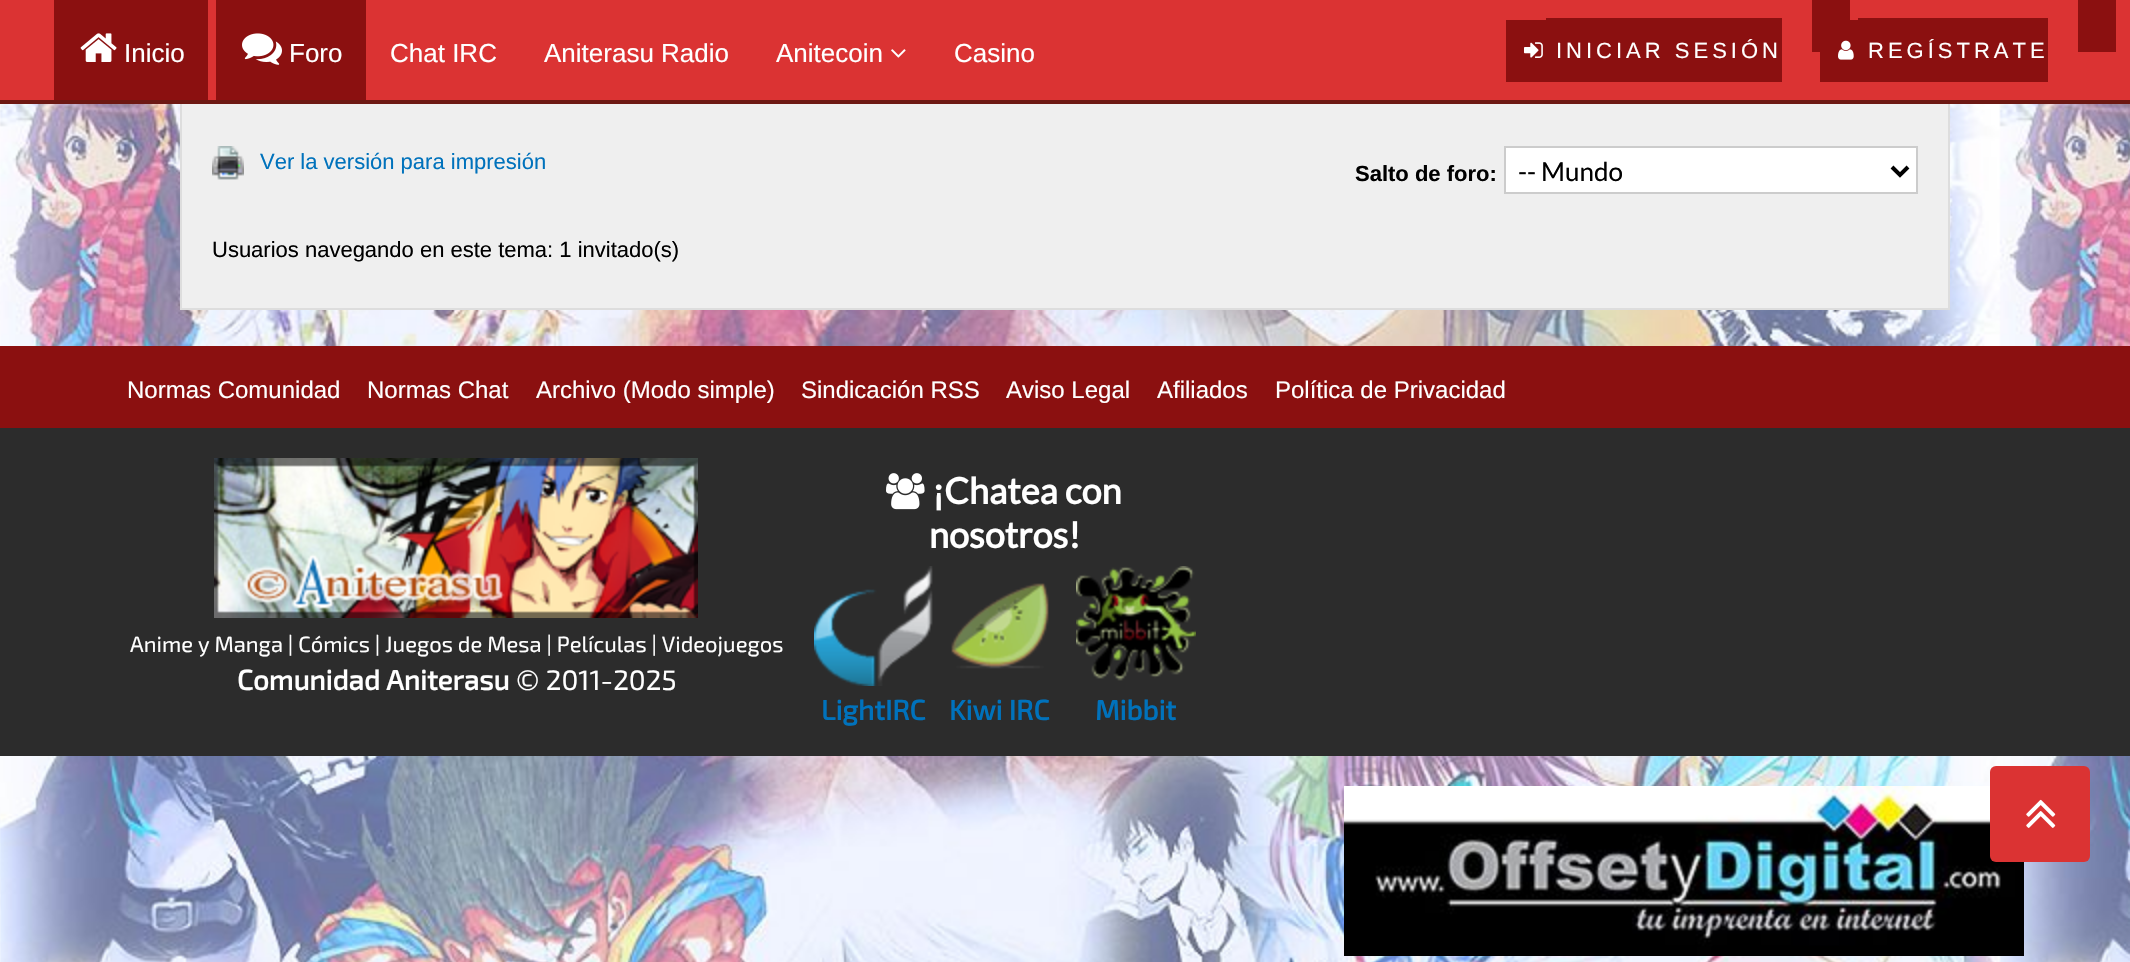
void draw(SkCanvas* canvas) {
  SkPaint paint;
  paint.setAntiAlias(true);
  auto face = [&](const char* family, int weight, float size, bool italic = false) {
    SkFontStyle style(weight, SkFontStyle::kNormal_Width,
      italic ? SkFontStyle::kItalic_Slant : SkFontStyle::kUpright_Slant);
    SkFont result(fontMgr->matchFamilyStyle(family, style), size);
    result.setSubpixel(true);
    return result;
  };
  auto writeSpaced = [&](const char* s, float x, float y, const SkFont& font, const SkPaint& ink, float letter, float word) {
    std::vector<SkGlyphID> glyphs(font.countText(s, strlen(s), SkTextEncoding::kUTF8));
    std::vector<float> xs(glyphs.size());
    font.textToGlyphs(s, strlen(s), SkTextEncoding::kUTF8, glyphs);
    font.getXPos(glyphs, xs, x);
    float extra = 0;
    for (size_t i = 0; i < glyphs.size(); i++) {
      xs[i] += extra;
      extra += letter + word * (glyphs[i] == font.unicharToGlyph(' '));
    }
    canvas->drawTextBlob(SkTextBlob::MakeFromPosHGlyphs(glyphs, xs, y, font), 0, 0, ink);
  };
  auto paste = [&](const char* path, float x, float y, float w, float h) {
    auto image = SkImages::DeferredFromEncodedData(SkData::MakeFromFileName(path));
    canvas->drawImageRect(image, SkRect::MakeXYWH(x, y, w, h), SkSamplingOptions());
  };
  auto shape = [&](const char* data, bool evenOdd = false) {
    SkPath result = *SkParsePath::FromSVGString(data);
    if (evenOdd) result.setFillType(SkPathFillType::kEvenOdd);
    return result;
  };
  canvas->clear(0xffffffff);
  paste("img/1.png", 0, 104, 2130, 858);
  paint.setColor(0xffefefef);
  canvas->drawRect(SkRect::MakeXYWH(182, 104, 1766, 204), paint);
  paint.setStroke(true);
  paint.setStrokeWidth(2);
  paint.setColor(0xffdddddd);
  canvas->drawRect(SkRect::MakeXYWH(181, -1, 1768, 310), paint);
  paint.setStroke(false);
  {
    const struct { float x, y, w, h; SkColor color; } items[] = {
      {0, 0, 2130, 100, 0xffdb3333},
      {0, 100, 2130, 4, 0xff6d1813},
      {54, 0, 154, 100, 0xff8b1010},
    };
    for (auto [x, y, w, h, color] : items) {
      paint.setColor(color);
      canvas->drawRect(SkRect::MakeXYWH(x, y, w, h), paint);
    }
  }
  paste("img/2.png", 80, 33, 37, 29);
  canvas->drawRect(SkRect::MakeXYWH(216, 0, 150, 100), paint);
  paste("img/3.png", 242, 33, 40, 32);
  paste("img/4.png", 891, 49, 15, 9);
  {
    const struct { float x, y, w, h; SkColor color; } items[] = {
      {1506, 20, 40, 62, 0xff8b1010},
      {1546, 18, 236, 64, 0xff8b1010},
      {1812, 0, 38, 52, 0xff8b1010},
    };
    for (auto [x, y, w, h, color] : items) {
      paint.setColor(color);
      canvas->drawRect(SkRect::MakeXYWH(x, y, w, h), paint);
    }
  }
  paste("img/5.png", 1524, 42, 19, 16);
  {
    const struct { float x, y, w, h; SkColor color; } items[] = {
      {1820, 20, 38, 62, 0xff8b1010},
      {1858, 18, 190, 64, 0xff8b1010},
      {2078, 0, 38, 52, 0xff8b1010},
    };
    for (auto [x, y, w, h, color] : items) {
      paint.setColor(color);
      canvas->drawRect(SkRect::MakeXYWH(x, y, w, h), paint);
    }
  }
  paste("img/6.png", 1838, 40, 16, 20);
  paste("img/7.png", 212, 146, 32, 34);
  paint.setColor(0xffffffff);
  canvas->drawRect(SkRect::MakeXYWH(1505, 147, 412, 46), paint);
  paint.setStroke(true);
  paint.setColor(0xffcccccc);
  canvas->drawRect(SkRect::MakeXYWH(1505, 147, 412, 46), paint);
  paint.setStrokeWidth(4);
  paint.setColor(0xff000000);
  canvas->drawPath(shape("M1892 167L1900 175L1908 167"), paint);
  paint.setStroke(false);
  paint.setColor(0xff8b1010);
  canvas->drawRect(SkRect::MakeXYWH(0, 346, 2130, 82), paint);
  paint.setColor(0xff2c2c2c);
  canvas->drawRect(SkRect::MakeXYWH(0, 428, 2130, 328), paint);
  paste("img/8.png", 214, 458, 484, 160);
  paste("img/9.png", 886, 473, 39, 37);
  paste("img/10.png", 814, 566, 119, 120);
  paste("img/11.png", 951, 583, 98, 86);
  paste("img/12.png", 1076, 566, 120, 115);
  paste("img/13.png", 1344, 786, 680, 170);
  paint.setColor(0xffdb3333);
  canvas->drawRoundRect(SkRect::MakeXYWH(1990, 766, 100, 96), 6, 6, paint);
  paste("img/14.png", 2026, 799, 30, 29);
  auto f0 = face("Liberation Sans", 400, 26);
  paint.setColor(0xffffffff);
  {
    const struct { const char* s; float x, y; } items[] = {
      {"Inicio", 124, 62},
      {"Foro", 289, 62},
      {"Chat IRC", 390, 62},
      {"Aniterasu Radio", 544, 62},
      {"Anitecoin", 776, 62},
      {"Casino", 954, 62},
    };
    for (auto [s, x, y] : items) {
      canvas->drawString(s, x, y, f0, paint);
    }
  }
  auto f1 = face("Liberation Sans", 400, 22);
  writeSpaced("INICIAR SESIÓN", 1556, 58, f1, paint, 4, 0);
  writeSpaced("REGÍSTRATE", 1868, 58, f1, paint, 4, 0);
  paint.setColor(0xff0072bc);
  canvas->drawString("Ver la versión para impresión", 260, 169, f1, paint);
  auto f2 = face("Liberation Sans", 700, 22);
  paint.setColor(0xff000000);
  canvas->drawString("Salto de foro:", 1355, 181, f2, paint);
  auto f3 = face("Lato", 400, 26);
  canvas->drawString("-- Mundo", 1518, 181, f3, paint);
  canvas->drawString("Usuarios navegando en este tema: 1 invitado(s)", 212, 257, f1, paint);
  auto f4 = face("Liberation Sans", 400, 24);
  paint.setColor(0xffffffff);
  {
    const struct { const char* s; float x, y; } items[] = {
      {"Normas Comunidad", 127, 398},
      {"Normas Chat", 367, 398},
      {"Archivo (Modo simple)", 536, 398},
      {"Sindicación RSS", 801, 398},
      {"Aviso Legal", 1006, 398},
      {"Afiliados", 1157, 398},
      {"Política de Privacidad", 1275, 398},
    };
    for (auto [s, x, y] : items) {
      canvas->drawString(s, x, y, f4, paint);
    }
  }
  auto f5 = face("Exo 2", 400, 22);
  canvas->drawString("Anime y Manga | Cómics | Juegos de Mesa | Películas | Videojuegos", 130, 652, f5, paint);
  auto f6 = face("Exo 2", 700, 28);
  canvas->drawString("Comunidad Aniterasu", 237, 690, f6, paint);
  auto f7 = face("Exo 2", 400, 28);
  canvas->drawString("© 2011-2025", 516, 690, f7, paint);
  auto f8 = face("Lato", 700, 36);
  canvas->drawString("¡Chatea con", 932, 504, f8, paint);
  canvas->drawString("nosotros!", 929, 548, f8, paint);
  paint.setColor(0xff0072bc);
  {
    const struct { const char* s; float x, y; } items[] = {
      {"LightIRC", 821, 720},
      {"Kiwi IRC", 949, 720},
      {"Mibbit", 1095, 720},
    };
    for (auto [s, x, y] : items) {
      canvas->drawString(s, x, y, f6, paint);
    }
  }
}
